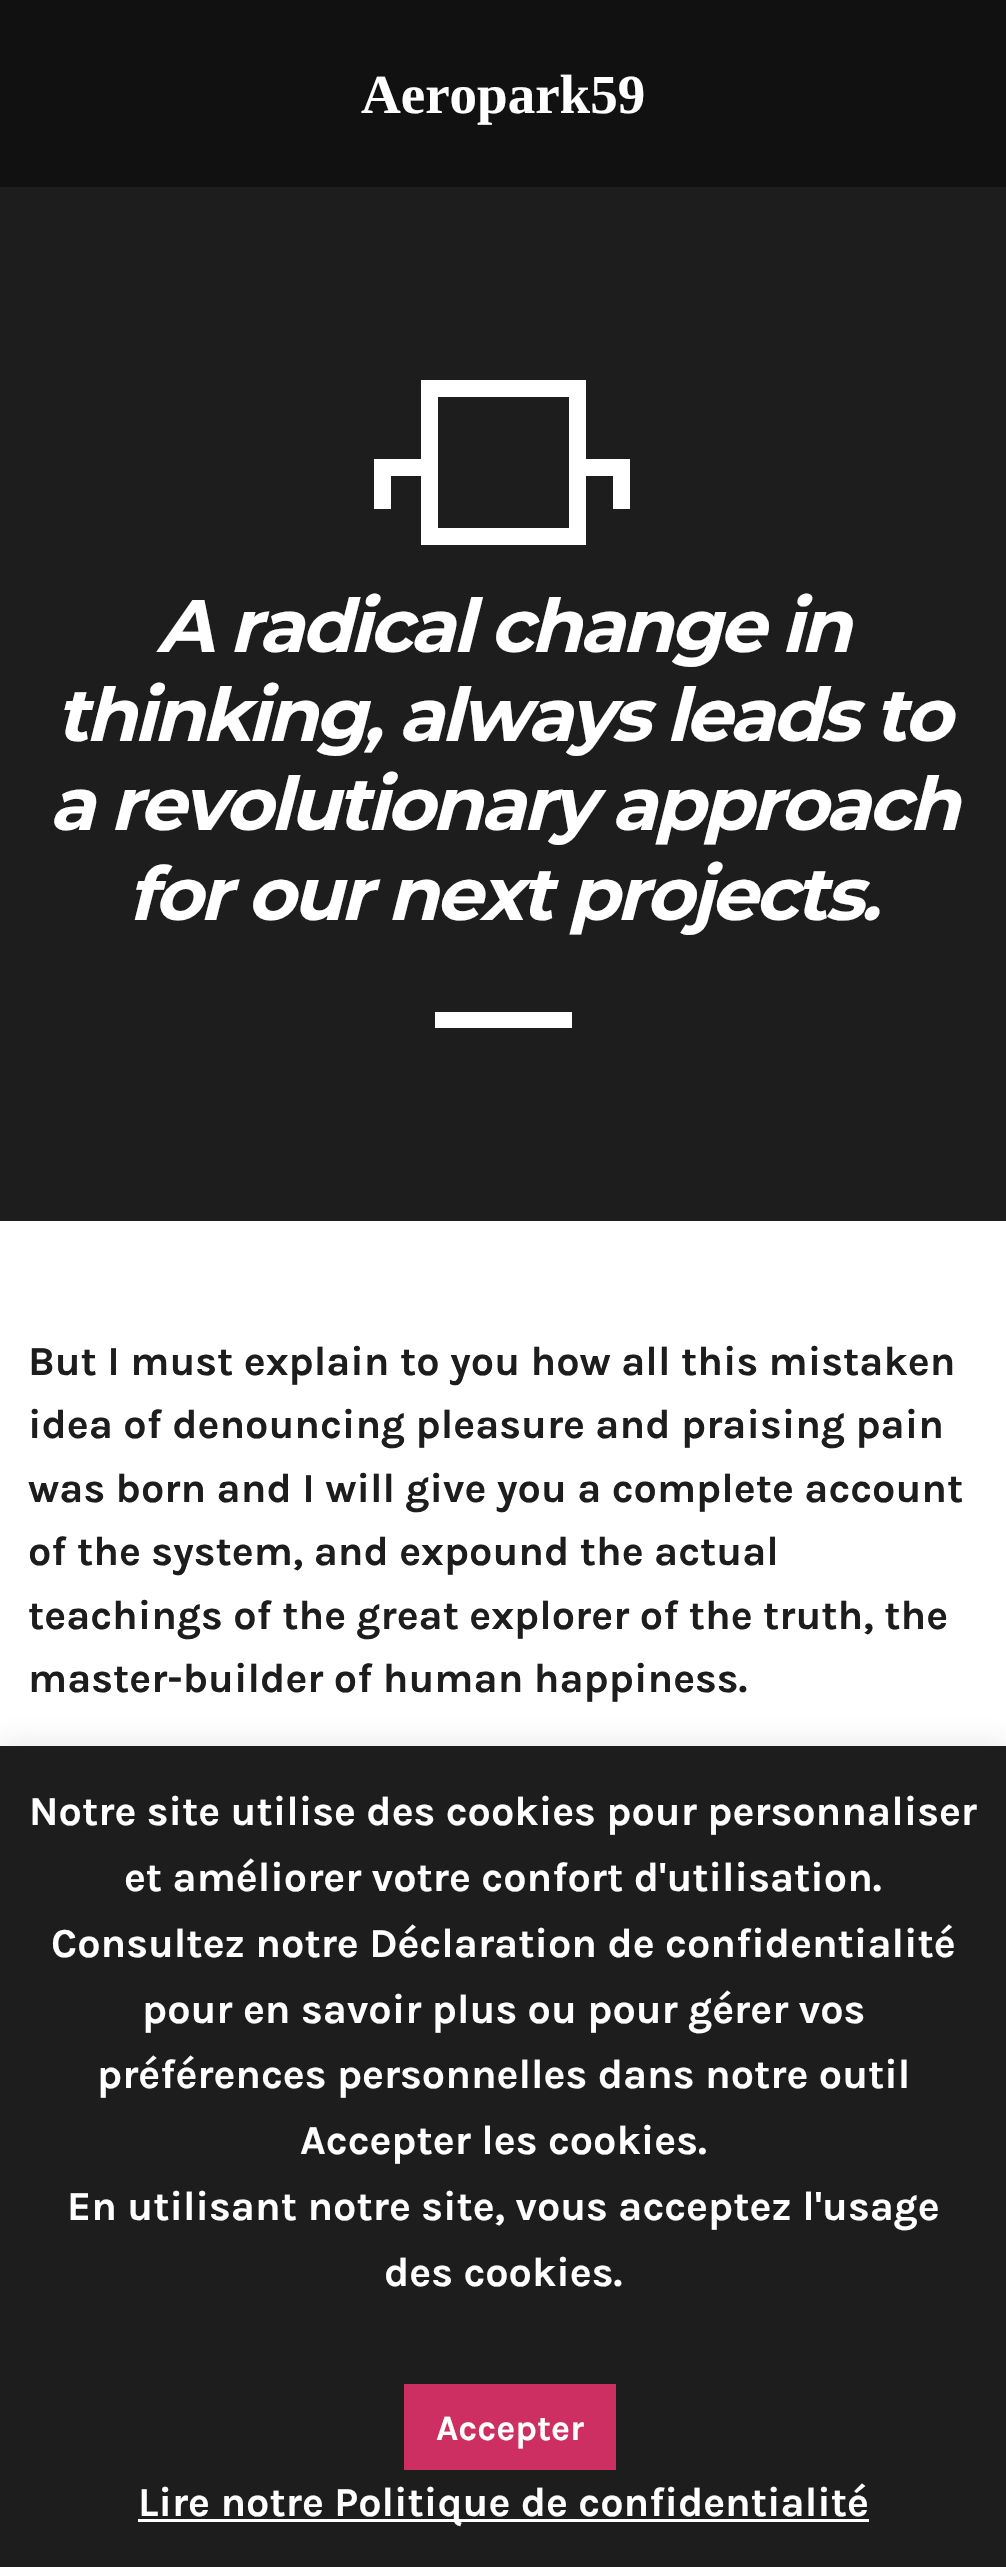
void draw(SkCanvas* canvas) {
  SkPaint paint;
  paint.setAntiAlias(true);
  auto face = [&](const char* family, int weight, float size, bool italic = false) {
    SkFontStyle style(weight, SkFontStyle::kNormal_Width,
      italic ? SkFontStyle::kItalic_Slant : SkFontStyle::kUpright_Slant);
    SkFont result(fontMgr->matchFamilyStyle(family, style), size);
    result.setSubpixel(true);
    return result;
  };
  auto writeSpaced = [&](const char* s, float x, float y, const SkFont& font, const SkPaint& ink, float letter, float word) {
    std::vector<SkGlyphID> glyphs(font.countText(s, strlen(s), SkTextEncoding::kUTF8));
    std::vector<float> xs(glyphs.size());
    font.textToGlyphs(s, strlen(s), SkTextEncoding::kUTF8, glyphs);
    font.getXPos(glyphs, xs, x);
    float extra = 0;
    for (size_t i = 0; i < glyphs.size(); i++) {
      xs[i] += extra;
      extra += letter + word * (glyphs[i] == font.unicharToGlyph(' '));
    }
    canvas->drawTextBlob(SkTextBlob::MakeFromPosHGlyphs(glyphs, xs, y, font), 0, 0, ink);
  };
  canvas->clear(0xff1d1d1d);
  paint.setColor(0xff111111);
  canvas->drawRect(SkRect::MakeXYWH(0, 0, 1006, 187), paint);
  paint.setStroke(true);
  paint.setStrokeWidth(17);
  paint.setColor(0xffffffff);
  canvas->drawRect(SkRect::MakeXYWH(429.5f, 388.5f, 148, 148), paint);
  paint.setStroke(false);
  {
    const struct { float x, y, w, h; SkColor color; } items[] = {
      {391, 459, 30, 17, 0xffffffff},
      {374, 459, 17, 50, 0xffffffff},
      {586, 459, 27, 17, 0xffffffff},
      {613, 459, 17, 50, 0xffffffff},
      {435, 1012, 137, 16, 0xffffffff},
      {0, 1221, 1006, 525, 0xffffffff},
    };
    for (auto [x, y, w, h, color] : items) {
      paint.setColor(color);
      canvas->drawRect(SkRect::MakeXYWH(x, y, w, h), paint);
    }
  }
  paint.setColor(0x4dacabab);
  paint.setMaskFilter(SkMaskFilter::MakeBlur(kNormal_SkBlurStyle, 14));
  canvas->drawRect(SkRect::MakeXYWH(0, 1744, 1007, 822), paint);
  paint.setMaskFilter(nullptr);
  {
    const struct { float x, y, w, h; SkColor color; } items[] = {
      {0, 1746, 1006, 821, 0xff1d1d1d},
      {404, 2384, 212, 86, 0xffce2f63},
      {138, 2519, 731, 3, 0xffffffff},
    };
    for (auto [x, y, w, h, color] : items) {
      paint.setColor(color);
      canvas->drawRect(SkRect::MakeXYWH(x, y, w, h), paint);
    }
  }
  auto f0 = face("Liberation Serif", 700, 55);
  canvas->drawString("Aeropark59", 361, 113, f0, paint);
  auto f1 = face("Montserrat", 700, 74.25f, true);
  {
    const struct { const char* s; float x, y; } items[] = {
      {"A radical change in", 157, 652},
      {"thinking, always leads to", 56, 741},
      {"a revolutionary approach", 49, 830},
      {"for our next projects.", 128, 920},
    };
    for (auto [s, x, y] : items) {
      writeSpaced(s, x, y, f1, paint, -3, 0);
    }
  }
  auto f2 = face("Karla", 700, 41.25f);
  paint.setColor(0xff1d1d1d);
  {
    const struct { const char* s; float x, y; } items[] = {
      {"But I must explain to you how all this mistaken", 28, 1375},
      {"idea of denouncing pleasure and praising pain", 28, 1438},
      {"was born and I will give you a complete account", 28, 1502},
      {"of the system, and expound the actual", 28, 1565},
      {"teachings of the great explorer of the truth, the", 28, 1629},
      {"master-builder of human happiness.", 28, 1692},
    };
    for (auto [s, x, y] : items) {
      canvas->drawString(s, x, y, f2, paint);
    }
  }
  paint.setColor(0xffffffff);
  {
    const struct { const char* s; float x, y; } items[] = {
      {"Notre site utilise des cookies pour personnaliser", 29, 1825},
      {"et améliorer votre confort d'utilisation.", 124, 1891},
      {"Consultez notre Déclaration de confidentialité", 51, 1957},
      {"pour en savoir plus ou pour gérer vos", 142, 2023},
      {"préférences personnelles dans notre outil", 97, 2088},
      {"Accepter les cookies.", 300, 2154},
      {"En utilisant notre site, vous acceptez l'usage", 67, 2220},
      {"des cookies.", 384, 2286},
    };
    for (auto [s, x, y] : items) {
      canvas->drawString(s, x, y, f2, paint);
    }
  }
  auto f3 = face("Karla", 700, 35.75f);
  canvas->drawString("Accepter", 436, 2440, f3, paint);
  canvas->drawString("Lire notre Politique de confidentialité", 138, 2516, f2, paint);
}
